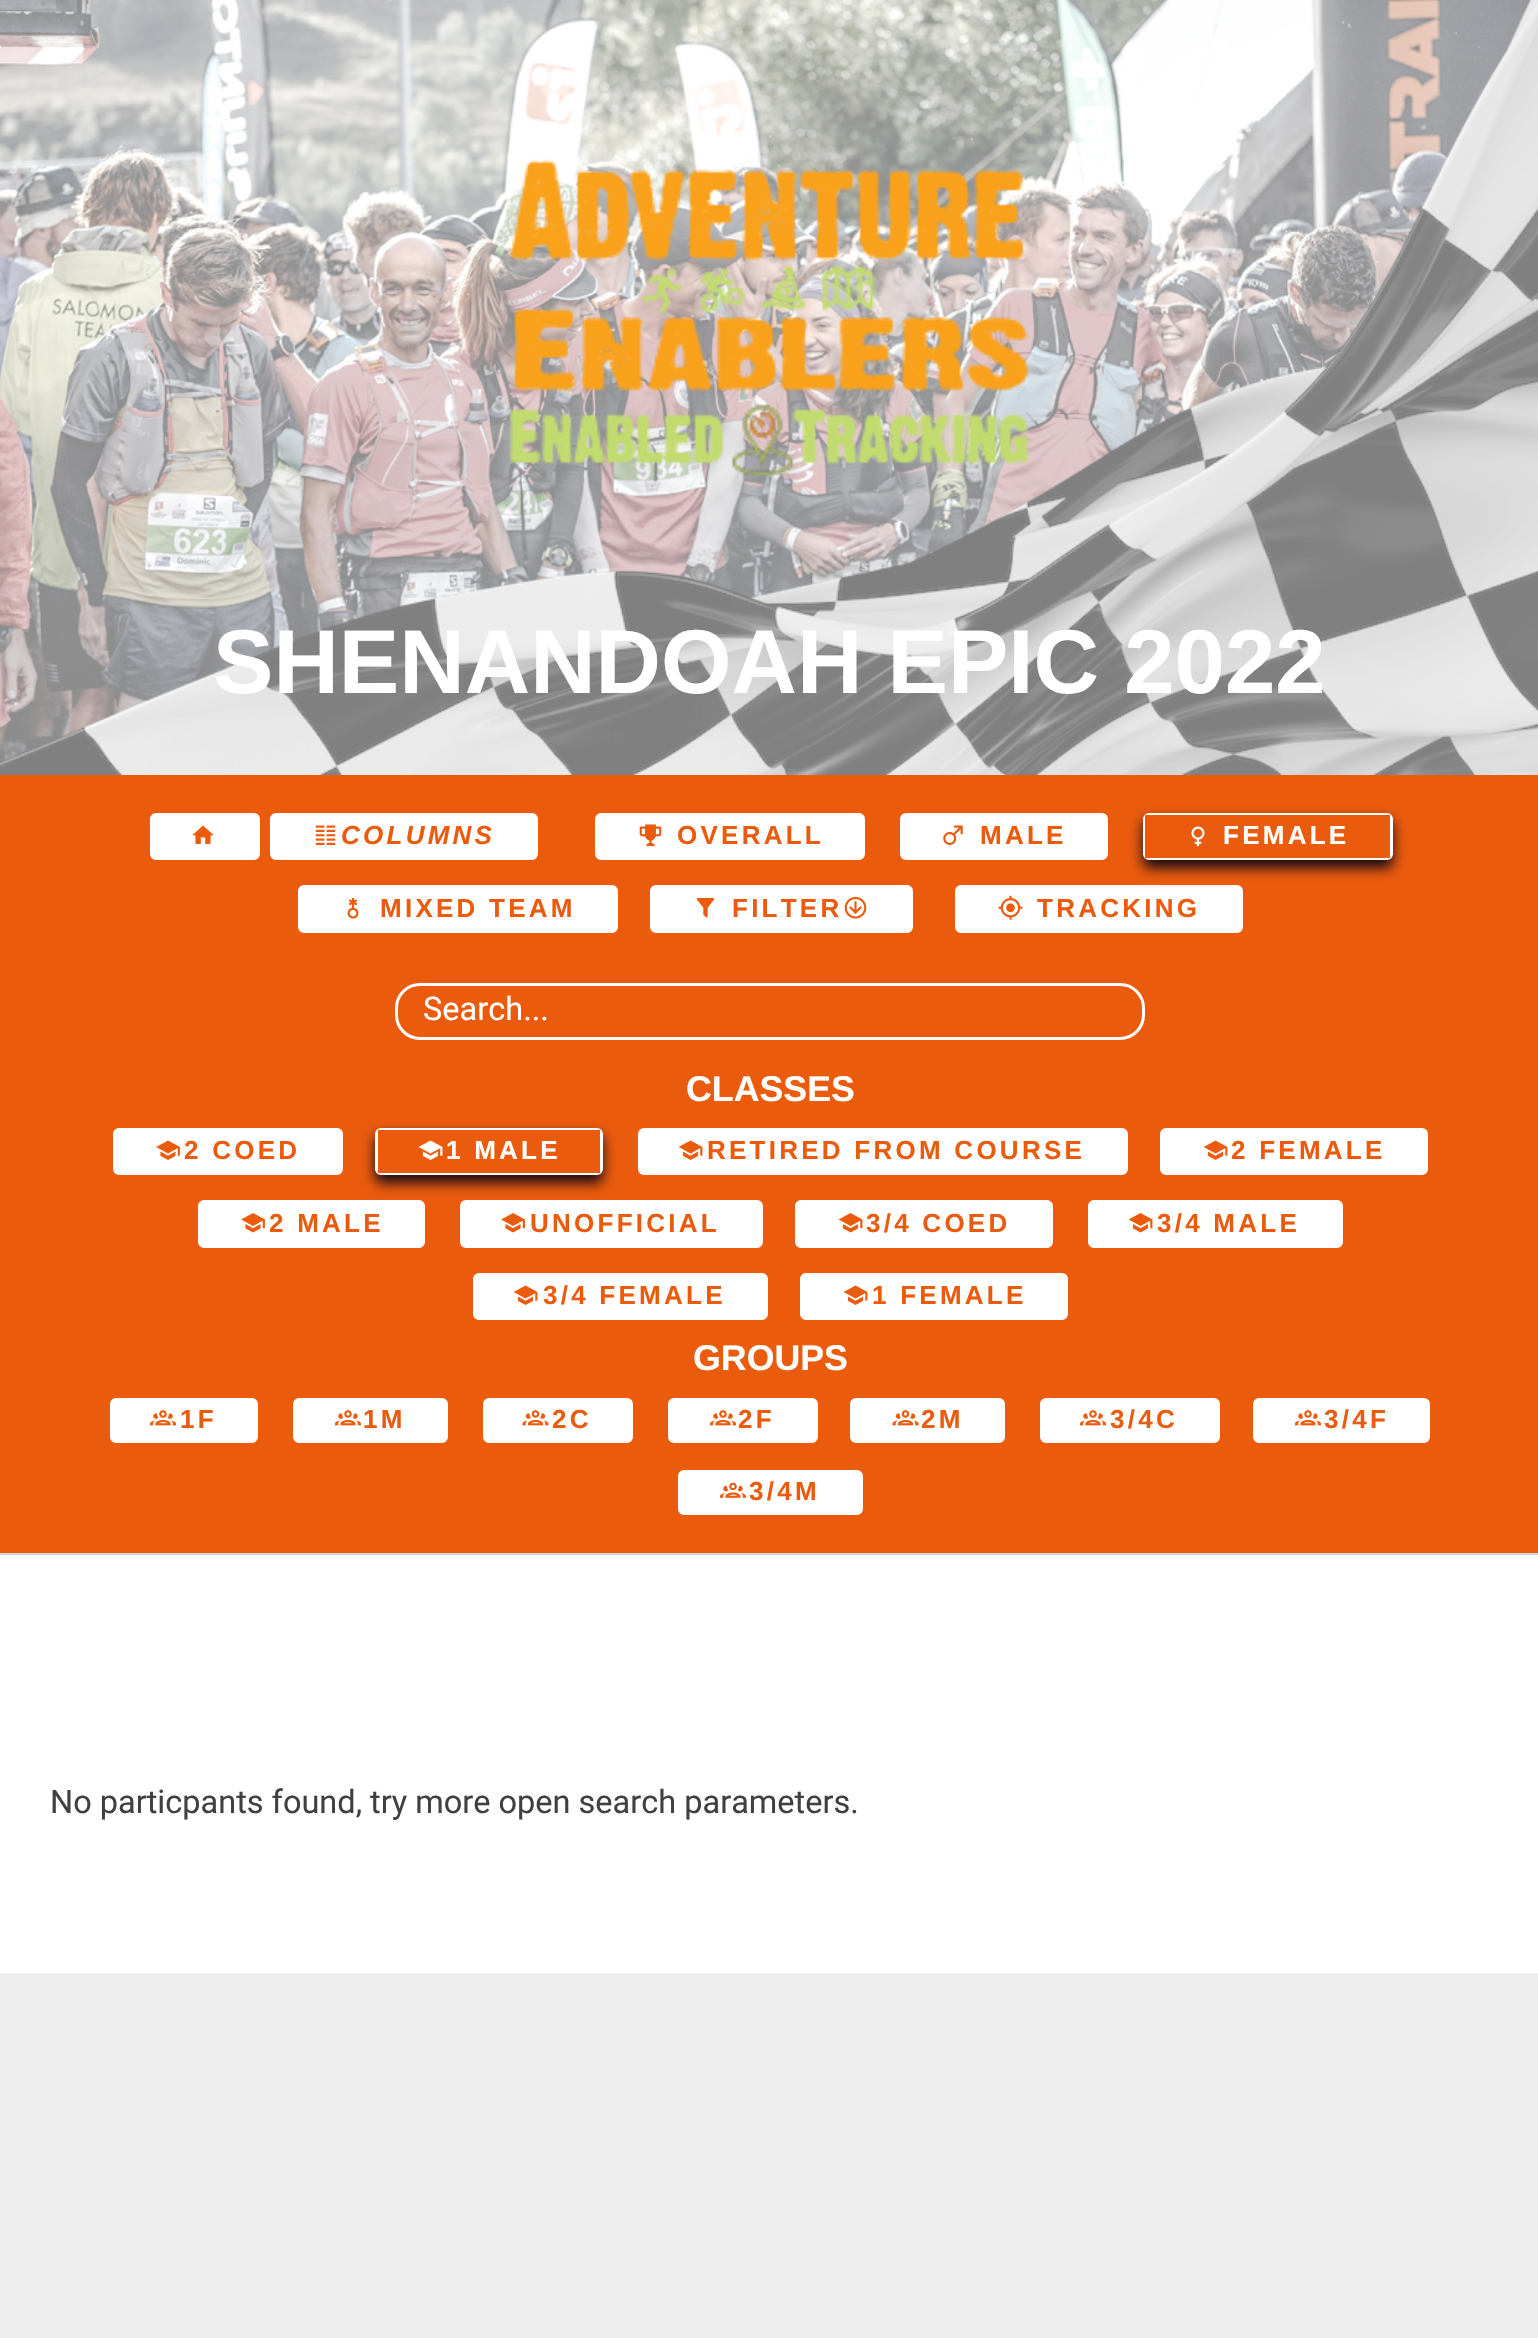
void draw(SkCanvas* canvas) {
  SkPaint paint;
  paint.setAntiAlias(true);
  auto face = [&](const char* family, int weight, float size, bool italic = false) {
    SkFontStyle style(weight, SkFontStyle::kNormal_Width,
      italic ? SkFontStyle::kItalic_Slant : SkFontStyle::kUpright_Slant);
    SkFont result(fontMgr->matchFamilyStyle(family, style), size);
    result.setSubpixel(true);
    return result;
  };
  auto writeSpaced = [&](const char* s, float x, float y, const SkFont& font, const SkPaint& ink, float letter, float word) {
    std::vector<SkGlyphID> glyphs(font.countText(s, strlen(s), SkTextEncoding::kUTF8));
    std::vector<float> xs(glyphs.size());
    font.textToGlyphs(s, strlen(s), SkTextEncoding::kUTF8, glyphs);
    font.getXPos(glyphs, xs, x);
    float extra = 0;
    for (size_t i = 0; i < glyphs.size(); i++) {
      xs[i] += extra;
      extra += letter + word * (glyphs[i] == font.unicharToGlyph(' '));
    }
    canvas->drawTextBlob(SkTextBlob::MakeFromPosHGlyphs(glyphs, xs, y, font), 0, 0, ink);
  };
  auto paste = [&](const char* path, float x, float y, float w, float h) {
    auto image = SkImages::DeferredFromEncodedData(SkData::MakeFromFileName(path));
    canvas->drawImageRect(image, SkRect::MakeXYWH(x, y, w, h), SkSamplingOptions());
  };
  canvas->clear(0xffeeeeee);
  paste("img/1.png", 0, 0, 1538, 775);
  paste("img/2.png", 509, 159, 520, 317);
  paint.setColor(0xffeb5b0d);
  canvas->drawRect(SkRect::MakeXYWH(0, 775, 1538, 778), paint);
  paint.setColor(0xffd3d3d3);
  canvas->drawRect(SkRect::MakeXYWH(0, 1553, 1538, 2), paint);
  paint.setColor(0xffffffff);
  canvas->drawRoundRect(SkRect::MakeXYWH(151.5f, 814.5f, 107, 44), 4.5f, 4.5f, paint);
  paint.setStroke(true);
  paint.setStrokeWidth(3);
  canvas->drawRoundRect(SkRect::MakeXYWH(151.5f, 814.5f, 107, 44), 4.5f, 4.5f, paint);
  paste("img/3.png", 192, 825, 22, 19);
  paint.setStroke(false);
  canvas->drawRoundRect(SkRect::MakeXYWH(271.5f, 814.5f, 265, 44), 4.5f, 4.5f, paint);
  paint.setStroke(true);
  canvas->drawRoundRect(SkRect::MakeXYWH(271.5f, 814.5f, 265, 44), 4.5f, 4.5f, paint);
  paste("img/4.png", 315, 825, 21, 20);
  paint.setStroke(false);
  canvas->drawRoundRect(SkRect::MakeXYWH(596.5f, 814.5f, 267, 44), 4.5f, 4.5f, paint);
  paint.setStroke(true);
  canvas->drawRoundRect(SkRect::MakeXYWH(596.5f, 814.5f, 267, 44), 4.5f, 4.5f, paint);
  paste("img/5.png", 639, 824, 23, 23);
  paint.setStroke(false);
  canvas->drawRoundRect(SkRect::MakeXYWH(901.5f, 814.5f, 205, 44), 4.5f, 4.5f, paint);
  paint.setStroke(true);
  canvas->drawRoundRect(SkRect::MakeXYWH(901.5f, 814.5f, 205, 44), 4.5f, 4.5f, paint);
  paste("img/6.png", 943, 825, 20, 20);
  paint.setStroke(false);
  canvas->drawRoundRect(SkRect::MakeXYWH(956.5f, 886.5f, 285, 45), 4.5f, 4.5f, paint);
  paint.setStroke(true);
  canvas->drawRoundRect(SkRect::MakeXYWH(956.5f, 886.5f, 285, 45), 4.5f, 4.5f, paint);
  paint.setStroke(false);
  paint.setColor(0xff130815);
  paint.setMaskFilter(SkMaskFilter::MakeBlur(kNormal_SkBlurStyle, 6.5f));
  canvas->drawRoundRect(SkRect::MakeXYWH(1143, 820, 250, 48), 6, 6, paint);
  paint.setMaskFilter(nullptr);
  paint.setStroke(true);
  paint.setColor(0xffffffff);
  canvas->drawRoundRect(SkRect::MakeXYWH(1144.5f, 814.5f, 247, 44), 4.5f, 4.5f, paint);
  paint.setStroke(false);
  paint.setColor(0xffeb5b0d);
  canvas->drawRect(SkRect::MakeXYWH(1145, 815, 245, 43), paint);
  paste("img/7.png", 1191, 826, 14, 21);
  paint.setColor(0xffffffff);
  canvas->drawRoundRect(SkRect::MakeXYWH(299.5f, 886.5f, 317, 45), 4.5f, 4.5f, paint);
  paint.setStroke(true);
  canvas->drawRoundRect(SkRect::MakeXYWH(299.5f, 886.5f, 317, 45), 4.5f, 4.5f, paint);
  paste("img/8.png", 347, 898, 12, 21);
  paint.setStroke(false);
  canvas->drawRoundRect(SkRect::MakeXYWH(651.5f, 886.5f, 260, 45), 4.5f, 4.5f, paint);
  paint.setStroke(true);
  canvas->drawRoundRect(SkRect::MakeXYWH(651.5f, 886.5f, 260, 45), 4.5f, 4.5f, paint);
  paste("img/9.png", 696, 898, 19, 20);
  paste("img/10.png", 844, 896, 23, 23);
  paste("img/11.png", 998, 895, 25, 25);
  canvas->drawRoundRect(SkRect::MakeXYWH(396.5f, 984.5f, 747, 54), 23.5f, 23.5f, paint);
  paint.setStroke(false);
  canvas->drawRoundRect(SkRect::MakeXYWH(114.5f, 1129.5f, 227, 44), 4.5f, 4.5f, paint);
  paint.setStroke(true);
  canvas->drawRoundRect(SkRect::MakeXYWH(114.5f, 1129.5f, 227, 44), 4.5f, 4.5f, paint);
  paste("img/12.png", 156, 1140, 24, 20);
  paint.setStroke(false);
  canvas->drawRoundRect(SkRect::MakeXYWH(199.5f, 1201.5f, 224, 45), 4.5f, 4.5f, paint);
  paint.setStroke(true);
  canvas->drawRoundRect(SkRect::MakeXYWH(199.5f, 1201.5f, 224, 45), 4.5f, 4.5f, paint);
  paint.setStroke(false);
  canvas->drawRoundRect(SkRect::MakeXYWH(461.5f, 1201.5f, 300, 45), 4.5f, 4.5f, paint);
  paint.setStroke(true);
  canvas->drawRoundRect(SkRect::MakeXYWH(461.5f, 1201.5f, 300, 45), 4.5f, 4.5f, paint);
  paint.setStroke(false);
  paint.setColor(0xff130815);
  paint.setMaskFilter(SkMaskFilter::MakeBlur(kNormal_SkBlurStyle, 6.5f));
  canvas->drawRoundRect(SkRect::MakeXYWH(375, 1135, 228, 48), 6, 6, paint);
  paint.setMaskFilter(nullptr);
  paint.setStroke(true);
  paint.setColor(0xffffffff);
  canvas->drawRoundRect(SkRect::MakeXYWH(376.5f, 1129.5f, 225, 44), 4.5f, 4.5f, paint);
  paint.setStroke(false);
  paint.setColor(0xffeb5b0d);
  canvas->drawRect(SkRect::MakeXYWH(378, 1130, 222, 43), paint);
  paste("img/13.png", 418, 1140, 25, 20);
  paint.setColor(0xffffffff);
  canvas->drawRoundRect(SkRect::MakeXYWH(639.5f, 1129.5f, 487, 44), 4.5f, 4.5f, paint);
  paint.setStroke(true);
  canvas->drawRoundRect(SkRect::MakeXYWH(639.5f, 1129.5f, 487, 44), 4.5f, 4.5f, paint);
  paste("img/14.png", 678, 1140, 25, 20);
  paint.setStroke(false);
  canvas->drawRoundRect(SkRect::MakeXYWH(1161.5f, 1129.5f, 265, 44), 4.5f, 4.5f, paint);
  paint.setStroke(true);
  canvas->drawRoundRect(SkRect::MakeXYWH(1161.5f, 1129.5f, 265, 44), 4.5f, 4.5f, paint);
  paste("img/14.png", 1203, 1140, 25, 20);
  paste("img/15.png", 241, 1213, 24, 20);
  paste("img/15.png", 501, 1213, 24, 20);
  paint.setStroke(false);
  canvas->drawRoundRect(SkRect::MakeXYWH(796.5f, 1201.5f, 255, 45), 4.5f, 4.5f, paint);
  paint.setStroke(true);
  canvas->drawRoundRect(SkRect::MakeXYWH(796.5f, 1201.5f, 255, 45), 4.5f, 4.5f, paint);
  paste("img/16.png", 838, 1213, 25, 20);
  paint.setStroke(false);
  canvas->drawRoundRect(SkRect::MakeXYWH(1089.5f, 1201.5f, 252, 45), 4.5f, 4.5f, paint);
  paint.setStroke(true);
  canvas->drawRoundRect(SkRect::MakeXYWH(1089.5f, 1201.5f, 252, 45), 4.5f, 4.5f, paint);
  paste("img/16.png", 1128, 1213, 25, 20);
  paint.setStroke(false);
  canvas->drawRoundRect(SkRect::MakeXYWH(474.5f, 1274.5f, 292, 44), 4.5f, 4.5f, paint);
  paint.setStroke(true);
  canvas->drawRoundRect(SkRect::MakeXYWH(474.5f, 1274.5f, 292, 44), 4.5f, 4.5f, paint);
  paste("img/14.png", 513, 1285, 25, 20);
  paint.setStroke(false);
  canvas->drawRoundRect(SkRect::MakeXYWH(801.5f, 1274.5f, 265, 44), 4.5f, 4.5f, paint);
  paint.setStroke(true);
  canvas->drawRoundRect(SkRect::MakeXYWH(801.5f, 1274.5f, 265, 44), 4.5f, 4.5f, paint);
  paste("img/14.png", 843, 1285, 25, 20);
  paint.setStroke(false);
  canvas->drawRoundRect(SkRect::MakeXYWH(111.5f, 1399.5f, 145, 42), 4.5f, 4.5f, paint);
  paint.setStroke(true);
  canvas->drawRoundRect(SkRect::MakeXYWH(111.5f, 1399.5f, 145, 42), 4.5f, 4.5f, paint);
  paste("img/17.png", 150, 1410, 26, 16);
  paint.setStroke(false);
  canvas->drawRoundRect(SkRect::MakeXYWH(294.5f, 1399.5f, 152, 42), 4.5f, 4.5f, paint);
  paint.setStroke(true);
  canvas->drawRoundRect(SkRect::MakeXYWH(294.5f, 1399.5f, 152, 42), 4.5f, 4.5f, paint);
  paste("img/17.png", 335, 1410, 26, 16);
  paint.setStroke(false);
  canvas->drawRoundRect(SkRect::MakeXYWH(484.5f, 1399.5f, 147, 42), 4.5f, 4.5f, paint);
  paint.setStroke(true);
  canvas->drawRoundRect(SkRect::MakeXYWH(484.5f, 1399.5f, 147, 42), 4.5f, 4.5f, paint);
  paste("img/18.png", 522, 1410, 27, 16);
  paint.setStroke(false);
  canvas->drawRoundRect(SkRect::MakeXYWH(669.5f, 1399.5f, 147, 42), 4.5f, 4.5f, paint);
  paint.setStroke(true);
  canvas->drawRoundRect(SkRect::MakeXYWH(669.5f, 1399.5f, 147, 42), 4.5f, 4.5f, paint);
  paste("img/17.png", 710, 1410, 26, 16);
  paint.setStroke(false);
  canvas->drawRoundRect(SkRect::MakeXYWH(851.5f, 1399.5f, 152, 42), 4.5f, 4.5f, paint);
  paint.setStroke(true);
  canvas->drawRoundRect(SkRect::MakeXYWH(851.5f, 1399.5f, 152, 42), 4.5f, 4.5f, paint);
  paste("img/18.png", 892, 1410, 27, 16);
  paint.setStroke(false);
  canvas->drawRoundRect(SkRect::MakeXYWH(1041.5f, 1399.5f, 177, 42), 4.5f, 4.5f, paint);
  paint.setStroke(true);
  canvas->drawRoundRect(SkRect::MakeXYWH(1041.5f, 1399.5f, 177, 42), 4.5f, 4.5f, paint);
  paste("img/17.png", 1080, 1410, 26, 16);
  paint.setStroke(false);
  canvas->drawRoundRect(SkRect::MakeXYWH(1254.5f, 1399.5f, 174, 42), 4.5f, 4.5f, paint);
  paint.setStroke(true);
  canvas->drawRoundRect(SkRect::MakeXYWH(1254.5f, 1399.5f, 174, 42), 4.5f, 4.5f, paint);
  paste("img/17.png", 1295, 1410, 26, 16);
  paint.setStroke(false);
  canvas->drawRoundRect(SkRect::MakeXYWH(679.5f, 1471.5f, 182, 42), 4.5f, 4.5f, paint);
  paint.setStroke(true);
  canvas->drawRoundRect(SkRect::MakeXYWH(679.5f, 1471.5f, 182, 42), 4.5f, 4.5f, paint);
  paste("img/19.png", 720, 1482, 26, 16);
  paint.setStroke(false);
  canvas->drawRect(SkRect::MakeXYWH(0, 1555, 1538, 418), paint);
  auto f0 = face("Liberation Sans", 700, 90.6f);
  canvas->drawString("SHENANDOAH EPIC 2022", 213, 693, f0, paint);
  auto f1 = face("Liberation Sans", 700, 26, true);
  paint.setColor(0xffeb5b0d);
  writeSpaced("COLUMNS", 341, 844, f1, paint, 3.25f, 0);
  auto f2 = face("Liberation Sans", 700, 26);
  writeSpaced("OVERALL", 677, 844, f2, paint, 3.25f, 0);
  writeSpaced("MALE", 980, 844, f2, paint, 3.25f, 0);
  paint.setColor(0xffffffff);
  writeSpaced("FEMALE", 1223, 844, f2, paint, 3.25f, 0);
  paint.setColor(0xffeb5b0d);
  {
    const struct { const char* s; float x, y; } items[] = {
      {"MIXED TEAM", 380, 917},
      {"FILTER", 732, 917},
      {"TRACKING", 1037, 917},
    };
    for (auto [s, x, y] : items) {
      writeSpaced(s, x, y, f2, paint, 3.25f, 0);
    }
  }
  auto f3 = face("Roboto", 400, 32.5f);
  paint.setColor(0xffffffff);
  canvas->drawString("Search...", 423, 1020, f3, paint);
  auto f4 = face("Liberation Sans", 700, 35.75f);
  canvas->drawString("CLASSES", 686, 1101, f4, paint);
  paint.setColor(0xffeb5b0d);
  writeSpaced("2 COED", 184, 1159, f2, paint, 3.25f, 0);
  paint.setColor(0xffffffff);
  writeSpaced("1 MALE", 446, 1159, f2, paint, 3.25f, 0);
  paint.setColor(0xffeb5b0d);
  {
    const struct { const char* s; float x, y; } items[] = {
      {"RETIRED FROM COURSE", 707, 1159},
      {"2 FEMALE", 1231, 1159},
      {"2 MALE", 269, 1232},
      {"UNOFFICIAL", 530, 1232},
      {"3/4 COED", 866, 1232},
      {"3/4 MALE", 1157, 1232},
      {"3/4 FEMALE", 543, 1304},
      {"1 FEMALE", 872, 1304},
    };
    for (auto [s, x, y] : items) {
      writeSpaced(s, x, y, f2, paint, 3.25f, 0);
    }
  }
  paint.setColor(0xffffffff);
  canvas->drawString("GROUPS", 693, 1370, f4, paint);
  paint.setColor(0xffeb5b0d);
  {
    const struct { const char* s; float x, y; } items[] = {
      {"1F", 180, 1428},
      {"1M", 363, 1428},
      {"2C", 552, 1428},
      {"2F", 738, 1428},
      {"2M", 921, 1428},
      {"3/4C", 1110, 1428},
      {"3/4F", 1324, 1428},
      {"3/4M", 749, 1500},
    };
    for (auto [s, x, y] : items) {
      writeSpaced(s, x, y, f2, paint, 3.25f, 0);
    }
  }
  paint.setColor(0xff404040);
  canvas->drawString("No particpants found, try more open search parameters.", 50, 1813, f3, paint);
}
